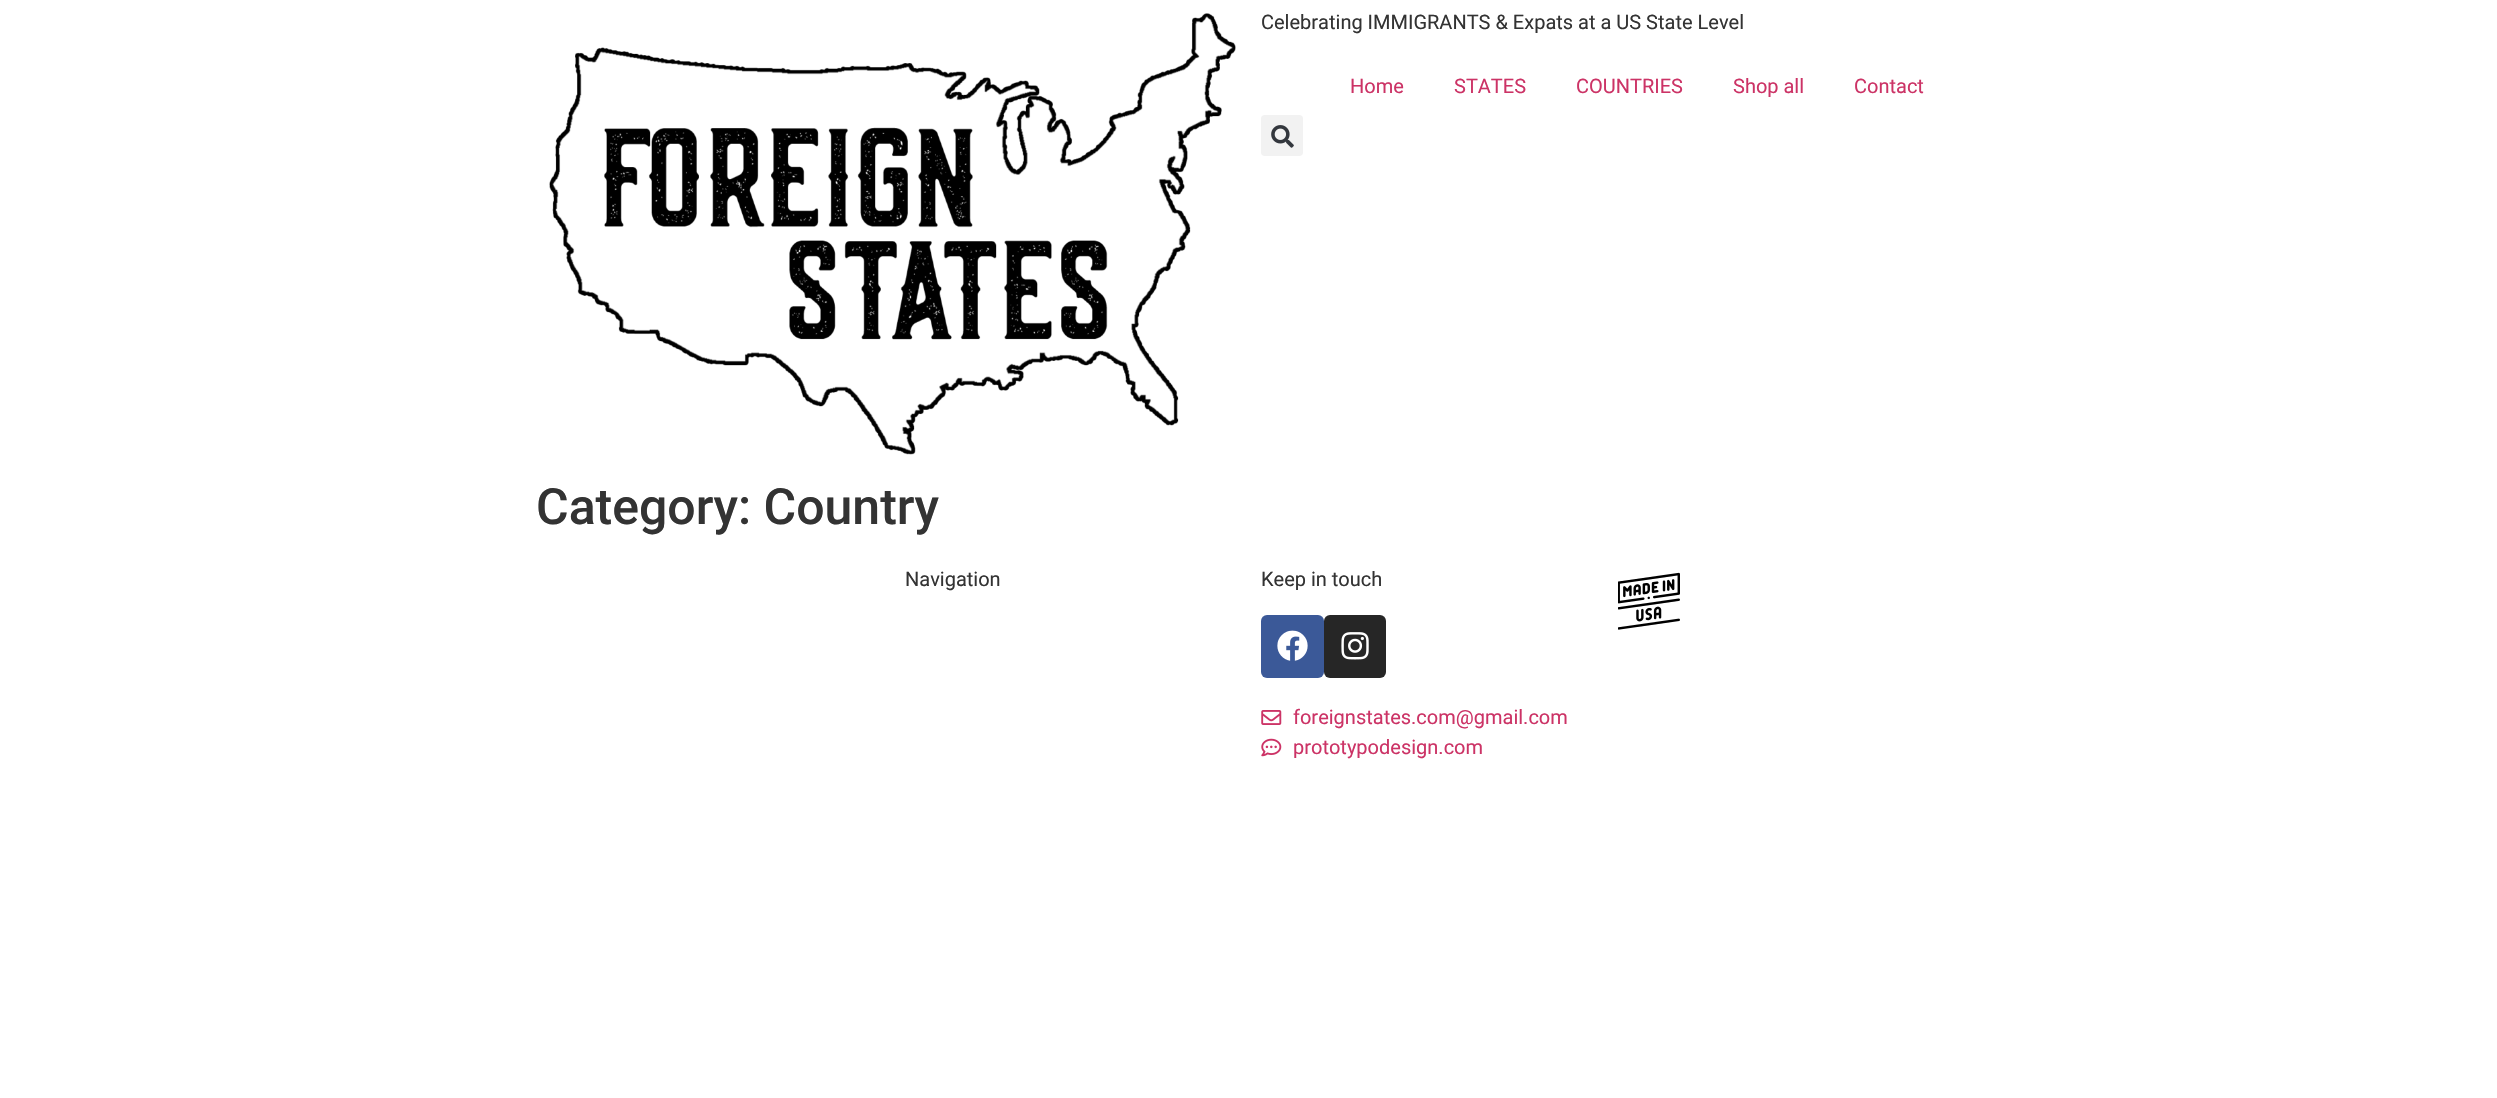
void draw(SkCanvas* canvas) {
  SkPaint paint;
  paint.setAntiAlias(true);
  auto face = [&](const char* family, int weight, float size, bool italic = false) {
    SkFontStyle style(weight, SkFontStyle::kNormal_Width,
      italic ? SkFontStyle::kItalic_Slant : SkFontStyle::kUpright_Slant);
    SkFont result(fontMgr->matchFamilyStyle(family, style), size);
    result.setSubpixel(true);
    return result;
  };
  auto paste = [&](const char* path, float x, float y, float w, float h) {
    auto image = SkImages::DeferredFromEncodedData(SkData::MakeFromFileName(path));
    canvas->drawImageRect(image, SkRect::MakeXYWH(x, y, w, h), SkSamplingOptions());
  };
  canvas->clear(0xffffffff);
  paste("img/1.png", 549, 13, 687, 442);
  paint.setColor(0xfff2f2f2);
  canvas->drawRoundRect(SkRect::MakeXYWH(1261, 115, 42, 41), 4, 4, paint);
  paste("img/2.png", 1271, 125, 23, 23);
  paint.setColor(0xff3b5998);
  canvas->drawRoundRect(SkRect::MakeXYWH(1261, 615, 63, 63), 6, 6, paint);
  paste("img/3.png", 1277, 630, 31, 31);
  paint.setColor(0xff262626);
  canvas->drawRoundRect(SkRect::MakeXYWH(1324, 615, 62, 63), 6, 6, paint);
  paste("img/4.png", 1341, 632, 28, 28);
  paste("img/5.png", 1261, 710, 21, 15);
  paste("img/6.png", 1261, 738, 21, 19);
  paste("img/7.png", 1618, 572, 62, 58);
  auto f0 = face("Roboto", 400, 20);
  paint.setColor(0xff333333);
  canvas->drawString("Celebrating IMMIGRANTS & Expats at a US State Level", 1261, 29, f0, paint);
  paint.setColor(0xffcc3366);
  {
    const struct { const char* s; float x, y; } items[] = {
      {"Home", 1350, 93},
      {"STATES", 1454, 93},
      {"COUNTRIES", 1576, 93},
      {"Shop all", 1733, 93},
      {"Contact", 1854, 93},
    };
    for (auto [s, x, y] : items) {
      canvas->drawString(s, x, y, f0, paint);
    }
  }
  auto f1 = face("Roboto", 500, 50);
  paint.setColor(0xff333333);
  canvas->drawString("Category: Country", 536, 524, f1, paint);
  canvas->drawString("Navigation", 905, 586, f0, paint);
  canvas->drawString("Keep in touch", 1261, 586, f0, paint);
  paint.setColor(0xffcc3366);
  canvas->drawString("foreignstates.com@gmail.com", 1293, 724, f0, paint);
  canvas->drawString("prototypodesign.com", 1293, 754, f0, paint);
}
